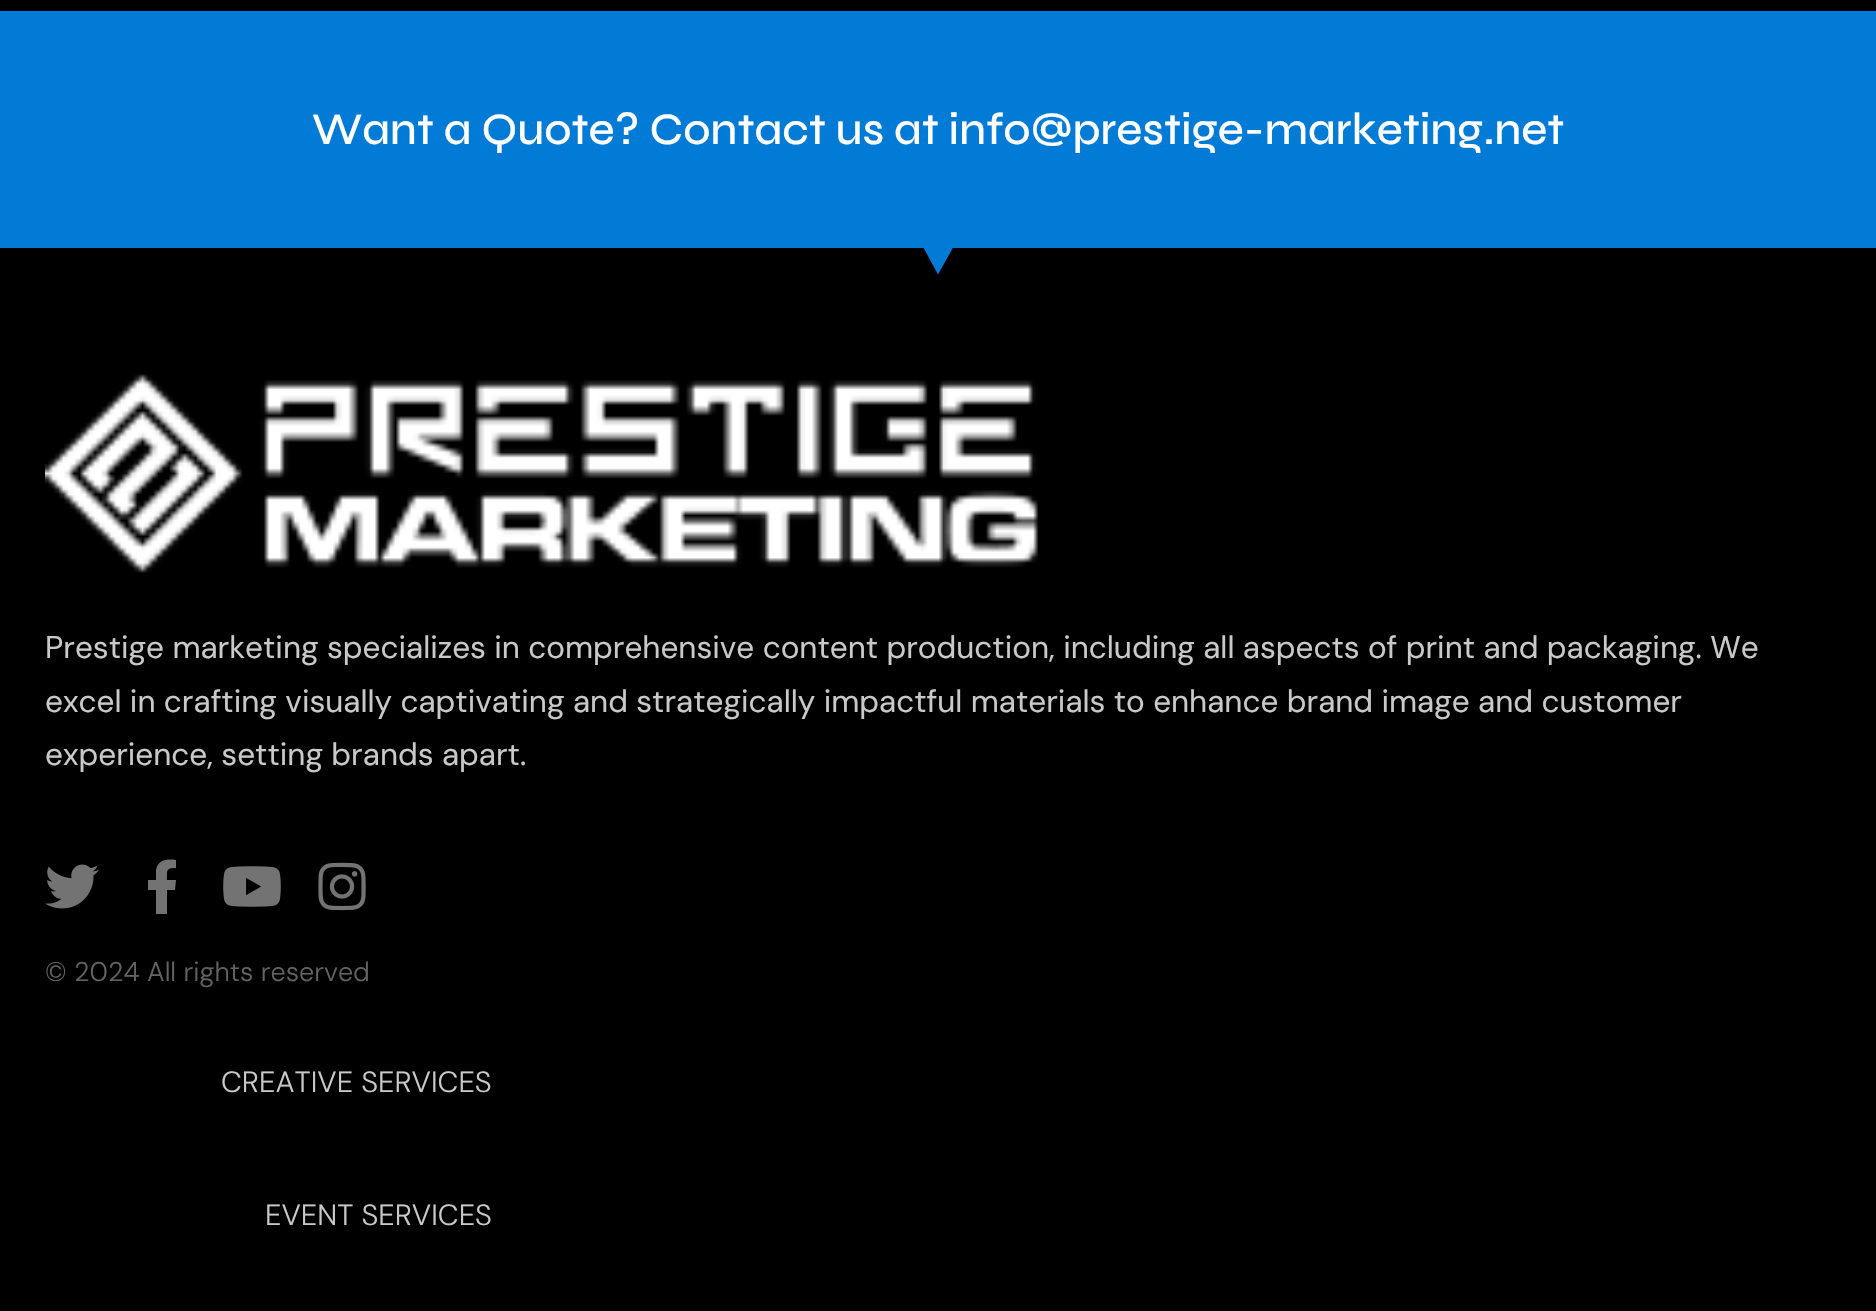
void draw(SkCanvas* canvas) {
  SkPaint paint;
  paint.setAntiAlias(true);
  auto face = [&](const char* family, int weight, float size, bool italic = false) {
    SkFontStyle style(weight, SkFontStyle::kNormal_Width,
      italic ? SkFontStyle::kItalic_Slant : SkFontStyle::kUpright_Slant);
    SkFont result(fontMgr->matchFamilyStyle(family, style), size);
    result.setSubpixel(true);
    return result;
  };
  auto paste = [&](const char* path, float x, float y, float w, float h) {
    auto image = SkImages::DeferredFromEncodedData(SkData::MakeFromFileName(path));
    canvas->drawImageRect(image, SkRect::MakeXYWH(x, y, w, h), SkSamplingOptions());
  };
  auto shape = [&](const char* data, bool evenOdd = false) {
    SkPath result = *SkParsePath::FromSVGString(data);
    if (evenOdd) result.setFillType(SkPathFillType::kEvenOdd);
    return result;
  };
  canvas->clear(0xff000000);
  paint.setColor(0xff027bd6);
  canvas->drawRect(SkRect::MakeXYWH(0, 11, 1876, 237), paint);
  canvas->drawPath(shape("M938 274.5L922 245H954.5Z"), paint);
  paste("img/1.png", 45, 374, 993, 199);
  paste("img/2.png", 45, 864, 54, 45);
  paint.setColor(0xff737373);
  canvas->drawPath(shape("M175 890H167V914H156V890H148V880H156V870C158 859 168 859 176 860V868C166 868 167 870 167 880H176Z"), paint);
  paste("img/3.png", 223, 866, 58, 41);
  paste("img/4.png", 318, 862, 48, 49);
  auto f0 = face("Syne", 500, 45);
  paint.setColor(0xffffffff);
  canvas->drawString("Want a Quote? Contact us at info@prestige-marketing.net", 312, 144, f0, paint);
  auto f1 = face("DM Sans", 400, 31.5f);
  paint.setColor(0xffc9c9c9);
  {
    const struct { const char* s; float x, y; } items[] = {
      {"Prestige marketing specializes in comprehensive content production, including all aspects of print and packaging. We", 45, 658},
      {"excel in crafting visually captivating and strategically impactful materials to enhance brand image and customer", 45, 712},
      {"experience, setting brands apart.", 45, 765},
    };
    for (auto [s, x, y] : items) {
      canvas->drawString(s, x, y, f1, paint);
    }
  }
  auto f2 = face("DM Sans", 300, 27);
  paint.setColor(0xff636363);
  canvas->drawString("© 2024 All rights reserved", 45, 981, f2, paint);
  auto f3 = face("DM Sans", 300, 29.25f);
  paint.setColor(0xffc9c9c9);
  canvas->drawString("CREATIVE SERVICES", 221, 1092, f3, paint);
  canvas->drawString("EVENT SERVICES", 265, 1225, f3, paint);
}
